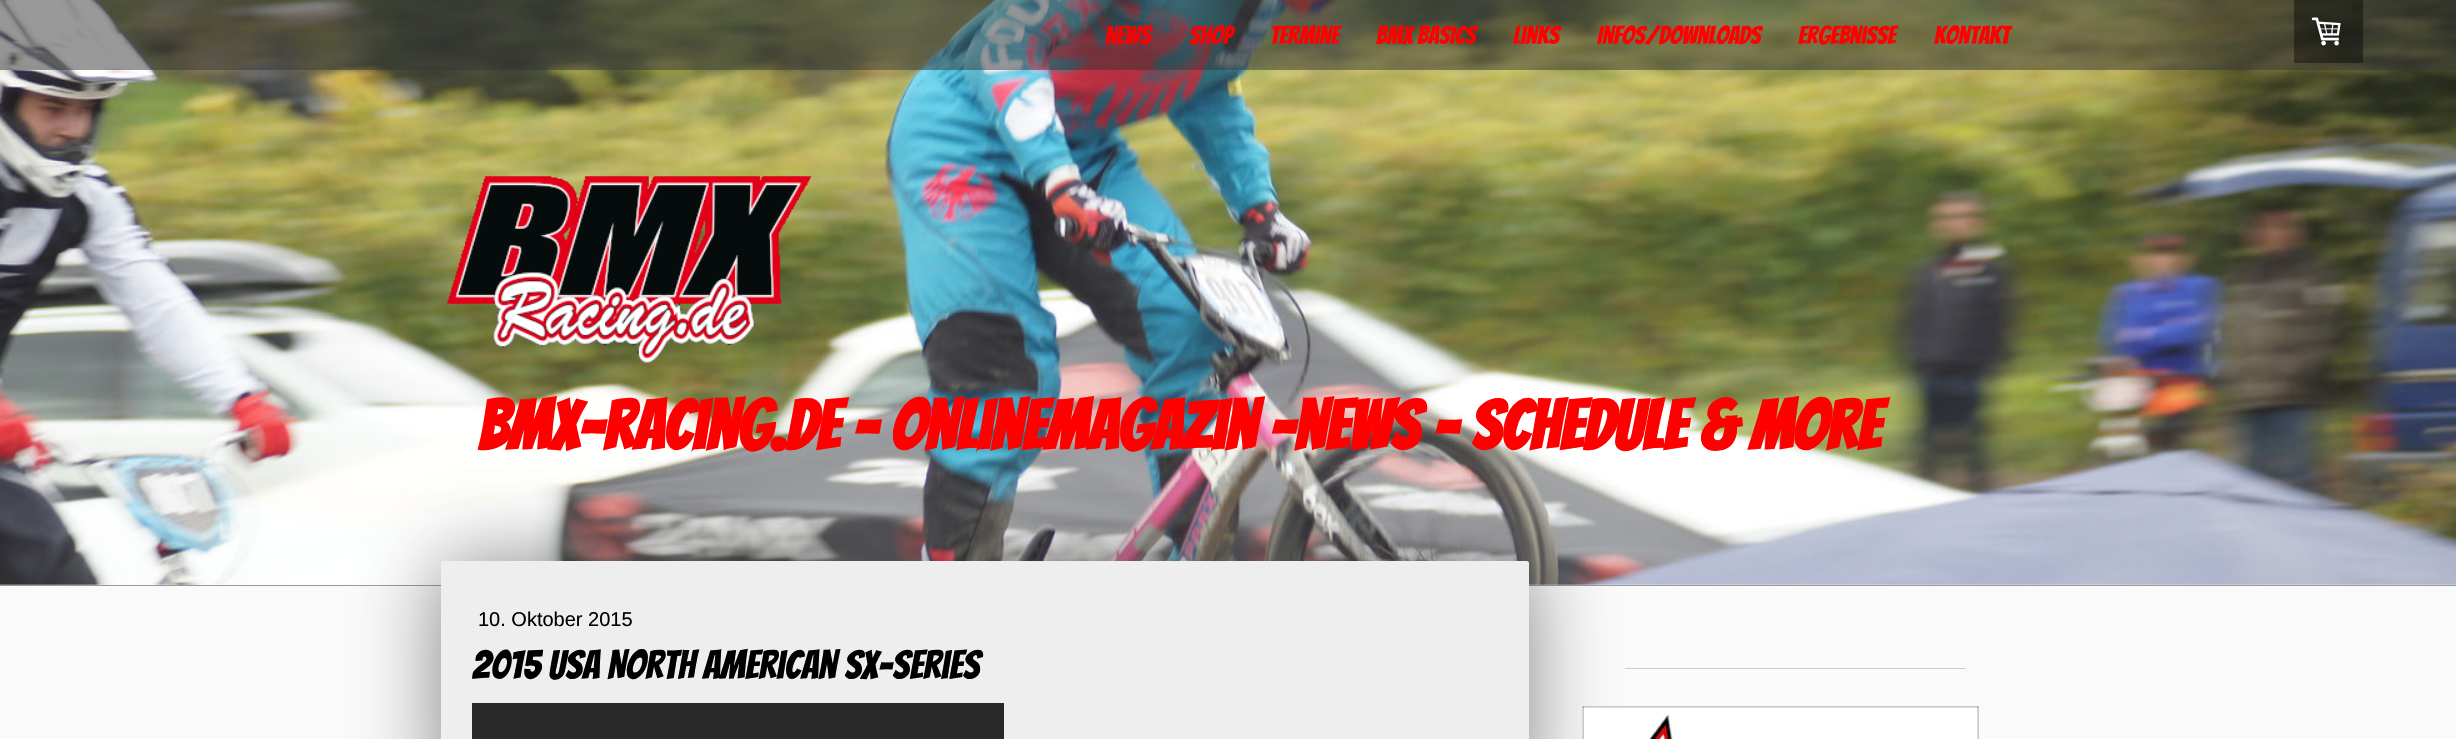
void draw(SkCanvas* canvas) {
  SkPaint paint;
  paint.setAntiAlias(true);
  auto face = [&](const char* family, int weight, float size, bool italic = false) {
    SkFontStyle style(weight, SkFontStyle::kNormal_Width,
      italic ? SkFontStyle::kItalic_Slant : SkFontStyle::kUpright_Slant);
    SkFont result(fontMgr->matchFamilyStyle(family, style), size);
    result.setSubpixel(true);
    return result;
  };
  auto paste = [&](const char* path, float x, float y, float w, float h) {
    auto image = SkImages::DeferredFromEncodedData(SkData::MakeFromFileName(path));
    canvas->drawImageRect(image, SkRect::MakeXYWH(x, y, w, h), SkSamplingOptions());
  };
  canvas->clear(0xffffffff);
  paste("img/1.png", 0, 0, 2456, 585);
  paint.setColor(0x80333333);
  canvas->drawRect(SkRect::MakeXYWH(0, 0, 2456, 70), paint);
  paint.setColor(0x66000000);
  canvas->drawRect(SkRect::MakeXYWH(2294, 0, 69, 63), paint);
  paste("img/2.png", 2311, 17, 30, 29);
  paste("img/3.png", 447, 176, 365, 187);
  {
    const struct { float x, y, w, h; SkColor color; } items[] = {
      {0, 586, 2456, 153, 0xfffafafa},
      {0, 585, 2456, 1, 0xff999999},
      {1625, 668, 341, 1, 0xffcccccc},
    };
    for (auto [x, y, w, h, color] : items) {
      paint.setColor(color);
      canvas->drawRect(SkRect::MakeXYWH(x, y, w, h), paint);
    }
  }
  paint.setColor(0x99333333);
  paint.setMaskFilter(SkMaskFilter::MakeBlur(kNormal_SkBlurStyle, 42.5f));
  canvas->drawRect(SkRect::MakeXYWH(440, 561, 1089, 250), paint);
  paint.setMaskFilter(nullptr);
  paint.setColor(0xffeeeeee);
  canvas->drawRoundRect(SkRect::MakeXYWH(441, 561, 1088, 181), 2.5f, 2.5f, paint);
  paint.setColor(0xff282828);
  canvas->drawRect(SkRect::MakeXYWH(472, 703, 532, 36), paint);
  paste("img/4.png", 1582, 706, 397, 33);
  auto f0 = face("Bangers", 400, 25);
  paint.setColor(0xffff0000);
  {
    const struct { const char* s; float x, y; } items[] = {
      {"News", 1105, 44},
      {"Shop", 1189, 44},
      {"Termine", 1270, 44},
      {"BMX Basics", 1376, 44},
      {"Links", 1513, 44},
      {"Infos/Downloads", 1597, 44},
      {"Ergebnisse", 1798, 44},
      {"Kontakt", 1934, 44},
    };
    for (auto [s, x, y] : items) {
      canvas->drawString(s, x, y, f0, paint);
    }
  }
  auto f1 = face("Bangers", 700, 68.75f);
  canvas->drawString("bmx-racing.de - onlinemagazin -news - schedule & more", 478, 450, f1, paint);
  auto f2 = face("Liberation Sans", 400, 20);
  paint.setColor(0xff000000);
  canvas->drawString("10. Oktober 2015", 478, 626, f2, paint);
  auto f3 = face("Bangers", 400, 40);
  canvas->drawString("2015 USA North American SX-Series", 472, 679, f3, paint);
}
